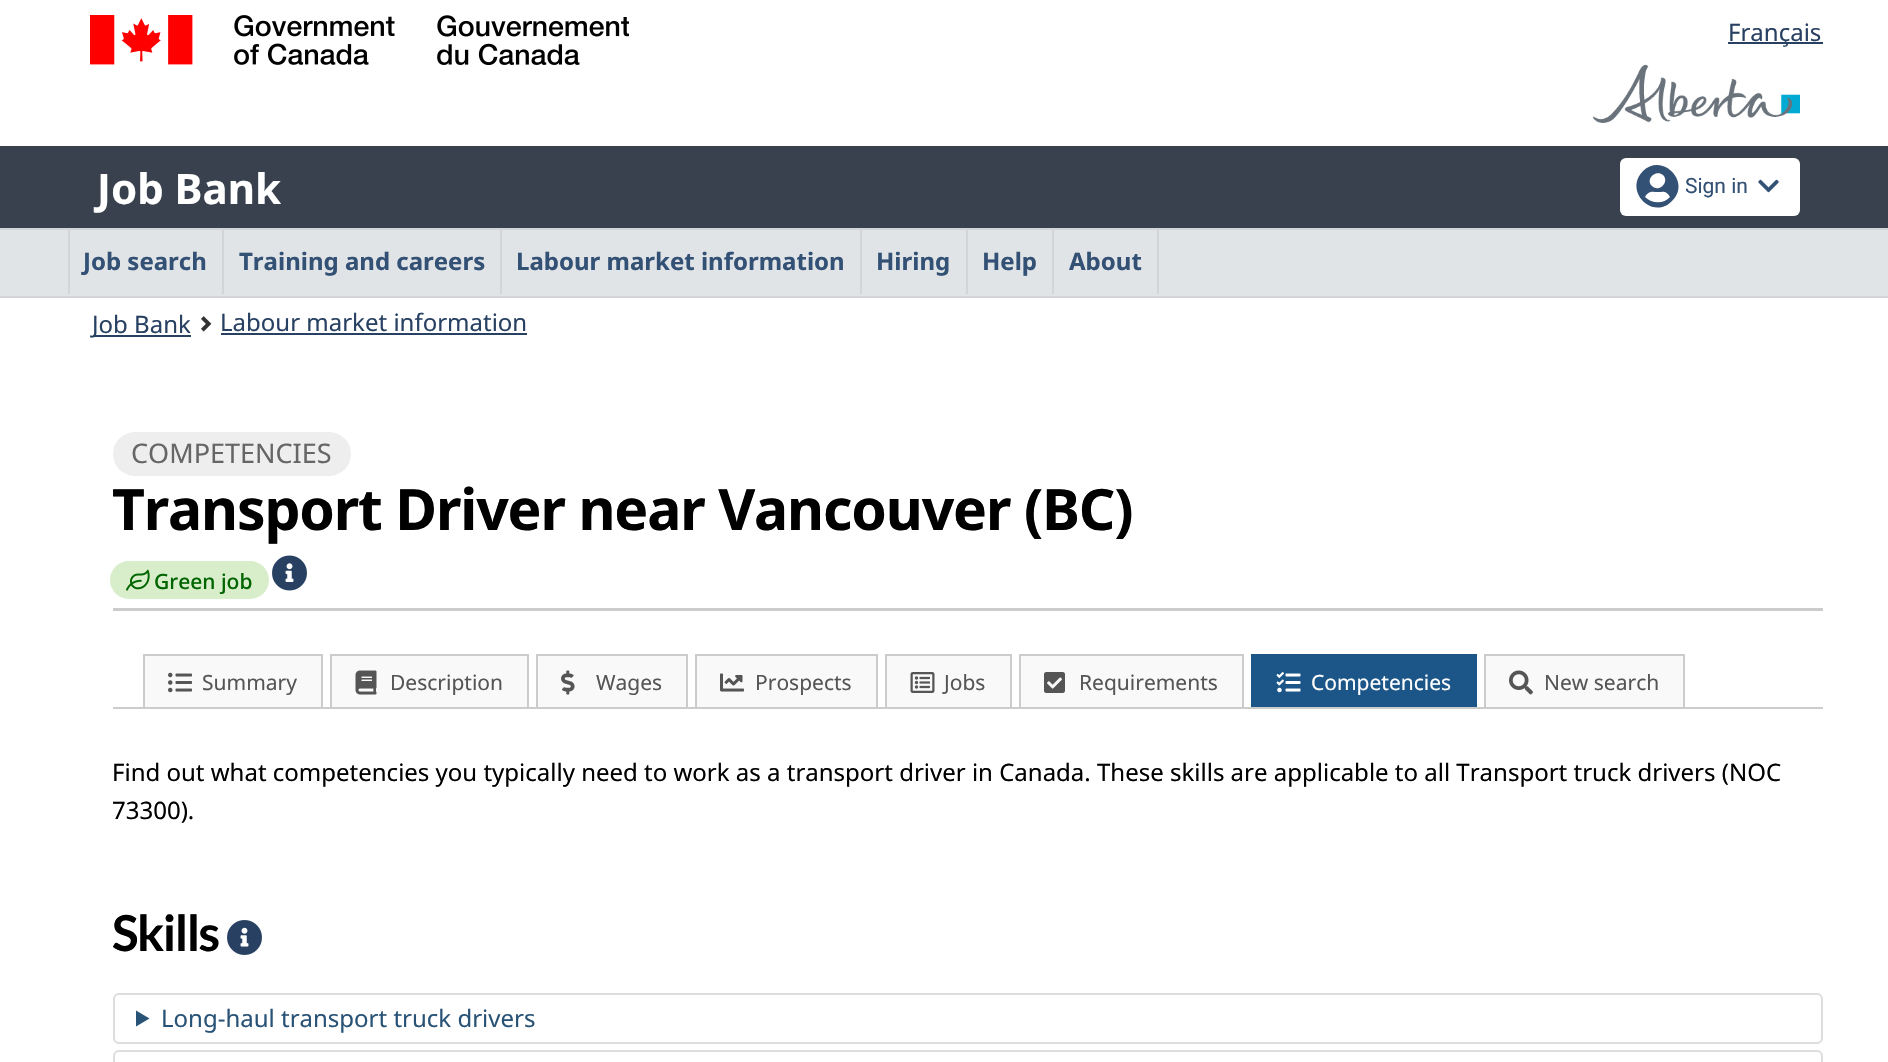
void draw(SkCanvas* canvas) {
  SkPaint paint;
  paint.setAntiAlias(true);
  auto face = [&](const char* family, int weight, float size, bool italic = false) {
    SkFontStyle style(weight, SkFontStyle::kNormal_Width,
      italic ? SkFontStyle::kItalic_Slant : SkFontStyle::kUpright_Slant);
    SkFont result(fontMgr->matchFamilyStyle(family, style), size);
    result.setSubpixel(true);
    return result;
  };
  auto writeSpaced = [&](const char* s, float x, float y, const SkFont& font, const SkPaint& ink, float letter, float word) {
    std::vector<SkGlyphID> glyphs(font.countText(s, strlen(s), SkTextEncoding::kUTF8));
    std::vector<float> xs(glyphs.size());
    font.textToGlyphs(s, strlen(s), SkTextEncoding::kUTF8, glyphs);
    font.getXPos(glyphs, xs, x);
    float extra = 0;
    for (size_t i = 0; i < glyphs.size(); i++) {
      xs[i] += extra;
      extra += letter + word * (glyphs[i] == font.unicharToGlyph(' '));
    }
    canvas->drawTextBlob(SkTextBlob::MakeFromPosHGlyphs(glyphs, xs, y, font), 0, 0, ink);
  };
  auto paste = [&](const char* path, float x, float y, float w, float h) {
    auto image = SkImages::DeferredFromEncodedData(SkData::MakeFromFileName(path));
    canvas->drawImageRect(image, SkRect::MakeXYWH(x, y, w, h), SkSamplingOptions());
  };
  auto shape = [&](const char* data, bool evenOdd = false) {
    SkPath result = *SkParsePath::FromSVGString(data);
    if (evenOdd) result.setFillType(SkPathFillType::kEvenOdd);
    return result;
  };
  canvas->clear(0xffffffff);
  paste("img/1.png", 90, 15, 539, 50);
  paint.setColor(0xff284162);
  canvas->drawRect(SkRect::MakeXYWH(1728, 42, 95, 2), paint);
  paste("img/2.png", 1593, 64, 207, 59);
  paint.setColor(0xff38414d);
  canvas->drawRect(SkRect::MakeXYWH(0, 146, 1888, 82), paint);
  paint.setColor(0xffffffff);
  canvas->drawRoundRect(SkRect::MakeXYWH(1620, 158, 180, 58), 6, 6, paint);
  paint.setColor(0xff335075);
  canvas->drawPath(shape("M1643 171C1662 152 1692 182 1672 201C1653 221 1623 191 1643 171ZM1663 175C1656 169 1645 179 1652 186C1659 193 1670 182 1663 175ZM1645 197C1652 204 1664 204 1670 197C1666 190 1663 192 1658 192C1653 192 1649 190 1645 197Z"), paint);
  paste("img/3.png", 1758, 179, 21, 14);
  {
    const struct { float x, y, w, h; SkColor color; } items[] = {
      {0, 230, 1888, 66, 0xffe1e4e7},
      {0, 228, 1888, 2, 0xffd3d4d8},
      {0, 296, 1888, 2, 0xffd3d4d8},
      {68, 230, 2, 64, 0xffd3d4d8},
      {222, 230, 2, 64, 0xffd3d4d8},
      {500, 230, 2, 64, 0xffd3d4d8},
      {860, 230, 2, 64, 0xffd3d4d8},
      {966, 230, 2, 64, 0xffd3d4d8},
      {1157, 230, 2, 64, 0xffd3d4d8},
      {1052, 230, 2, 64, 0xffd3d4d8},
      {93, 335, 98, 2, 0xff284162},
    };
    for (auto [x, y, w, h, color] : items) {
      paint.setColor(color);
      canvas->drawRect(SkRect::MakeXYWH(x, y, w, h), paint);
    }
  }
  paste("img/4.png", 201, 316, 11, 16);
  canvas->drawRect(SkRect::MakeXYWH(221, 333, 306, 2), paint);
  paint.setColor(0xffcccccc);
  canvas->drawRect(SkRect::MakeXYWH(113, 608, 1710, 3), paint);
  paint.setColor(0xffeeeeee);
  canvas->drawRoundRect(SkRect::MakeXYWH(113, 432, 238, 44), 22, 22, paint);
  paint.setColor(0xffd8eeca);
  canvas->drawRoundRect(SkRect::MakeXYWH(110, 561, 159, 38), 19, 19, paint);
  paste("img/5.png", 126, 569, 24, 22);
  paste("img/6.png", 272, 555, 35, 36);
  {
    const struct { float x, y, w, h; SkColor color; } items[] = {
      {113, 707, 1710, 2, 0xffcccccc},
      {145, 656, 176, 51, 0xfff9f9f9},
      {143, 654, 180, 2, 0xffcccccc},
      {321, 654, 2, 53, 0xffcccccc},
      {143, 654, 2, 53, 0xffcccccc},
    };
    for (auto [x, y, w, h, color] : items) {
      paint.setColor(color);
      canvas->drawRect(SkRect::MakeXYWH(x, y, w, h), paint);
    }
  }
  paste("img/7.png", 168, 672, 24, 21);
  {
    const struct { float x, y, w, h; SkColor color; } items[] = {
      {332, 656, 195, 51, 0xfff9f9f9},
      {330, 654, 198, 2, 0xffcccccc},
      {527, 654, 2, 53, 0xffcccccc},
      {330, 654, 2, 53, 0xffcccccc},
    };
    for (auto [x, y, w, h, color] : items) {
      paint.setColor(color);
      canvas->drawRect(SkRect::MakeXYWH(x, y, w, h), paint);
    }
  }
  paste("img/8.png", 355, 670, 22, 25);
  {
    const struct { float x, y, w, h; SkColor color; } items[] = {
      {538, 656, 148, 51, 0xfff9f9f9},
      {536, 654, 151, 2, 0xffcccccc},
      {686, 654, 2, 53, 0xffcccccc},
      {536, 654, 2, 53, 0xffcccccc},
    };
    for (auto [x, y, w, h, color] : items) {
      paint.setColor(color);
      canvas->drawRect(SkRect::MakeXYWH(x, y, w, h), paint);
    }
  }
  paste("img/9.png", 561, 670, 14, 25);
  {
    const struct { float x, y, w, h; SkColor color; } items[] = {
      {697, 656, 179, 51, 0xfff9f9f9},
      {695, 654, 183, 2, 0xffcccccc},
      {876, 654, 2, 53, 0xffcccccc},
      {695, 654, 2, 53, 0xffcccccc},
    };
    for (auto [x, y, w, h, color] : items) {
      paint.setColor(color);
      canvas->drawRect(SkRect::MakeXYWH(x, y, w, h), paint);
    }
  }
  paste("img/10.png", 720, 673, 24, 19);
  {
    const struct { float x, y, w, h; SkColor color; } items[] = {
      {887, 656, 123, 51, 0xfff9f9f9},
      {885, 654, 126, 2, 0xffcccccc},
      {1010, 654, 2, 53, 0xffcccccc},
      {885, 654, 2, 53, 0xffcccccc},
    };
    for (auto [x, y, w, h, color] : items) {
      paint.setColor(color);
      canvas->drawRect(SkRect::MakeXYWH(x, y, w, h), paint);
    }
  }
  paste("img/11.png", 910, 672, 25, 21);
  {
    const struct { float x, y, w, h; SkColor color; } items[] = {
      {1021, 656, 221, 51, 0xfff9f9f9},
      {1019, 654, 225, 2, 0xffcccccc},
      {1242, 654, 2, 53, 0xffcccccc},
      {1019, 654, 2, 53, 0xffcccccc},
    };
    for (auto [x, y, w, h, color] : items) {
      paint.setColor(color);
      canvas->drawRect(SkRect::MakeXYWH(x, y, w, h), paint);
    }
  }
  paste("img/12.png", 1044, 672, 21, 21);
  paint.setColor(0xff1c5688);
  canvas->drawRect(SkRect::MakeXYWH(1251, 654, 226, 53), paint);
  paste("img/13.png", 1276, 672, 25, 21);
  {
    const struct { float x, y, w, h; SkColor color; } items[] = {
      {1486, 656, 197, 51, 0xfff9f9f9},
      {1484, 654, 201, 2, 0xffcccccc},
      {1683, 654, 2, 53, 0xffcccccc},
      {1484, 654, 2, 53, 0xffcccccc},
    };
    for (auto [x, y, w, h, color] : items) {
      paint.setColor(color);
      canvas->drawRect(SkRect::MakeXYWH(x, y, w, h), paint);
    }
  }
  paste("img/14.png", 1509, 670, 24, 25);
  paste("img/15.png", 227, 920, 35, 35);
  paint.setStroke(true);
  paint.setStrokeWidth(2);
  paint.setColor(0xffdddddd);
  canvas->drawRoundRect(SkRect::MakeXYWH(114, 994, 1708, 49), 5, 5, paint);
  paint.setStroke(false);
  paint.setColor(0xff295376);
  canvas->drawPath(shape("M136 1010.5L149.5 1018.5L136 1026.5Z"), paint);
  paint.setStroke(true);
  paint.setColor(0xffdddddd);
  canvas->drawRoundRect(SkRect::MakeXYWH(114, 1051, 1708, 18), 5, 5, paint);
  auto f0 = face("Noto Sans", 400, 24);
  paint.setStroke(false);
  paint.setColor(0xff284162);
  canvas->drawString("Français", 1728, 41, f0, paint);
  auto f1 = face("Noto Sans", 700, 42);
  paint.setColor(0xffffffff);
  canvas->drawString("Job Bank", 97, 204, f1, paint);
  auto f2 = face("Roboto", 400, 21);
  paint.setColor(0xff335075);
  canvas->drawString("Sign in", 1685, 193, f2, paint);
  auto f3 = face("Noto Sans", 700, 24);
  {
    const struct { const char* s; float x, y; } items[] = {
      {"Job search", 83, 270},
      {"Training and careers", 239, 270},
      {"Labour market information", 516, 270},
      {"Hiring", 876, 270},
      {"Help", 982, 270},
      {"About", 1069, 270},
    };
    for (auto [s, x, y] : items) {
      canvas->drawString(s, x, y, f3, paint);
    }
  }
  paint.setColor(0xff284162);
  canvas->drawString("Job Bank", 92, 333, f0, paint);
  canvas->drawString("Labour market information", 220, 331, f0, paint);
  auto f4 = face("Noto Sans", 400, 27);
  paint.setColor(0xff666666);
  canvas->drawString("COMPETENCIES", 131, 463, f4, paint);
  auto f5 = face("Noto Sans", 700, 57);
  paint.setColor(0xff000000);
  writeSpaced("Transport Driver near Vancouver (BC)", 112, 530, f5, paint, -1.15f, 0);
  auto f6 = face("Noto Sans", 500, 21);
  paint.setColor(0xff006400);
  canvas->drawString("Green job", 154, 589, f6, paint);
  auto f7 = face("Noto Sans", 400, 21);
  paint.setColor(0xff555555);
  {
    const struct { const char* s; float x, y; } items[] = {
      {"Summary", 202, 690},
      {"Description", 390, 690},
      {"Wages", 596, 690},
      {"Prospects", 755, 690},
      {"Jobs", 944, 690},
      {"Requirements", 1079, 690},
    };
    for (auto [s, x, y] : items) {
      canvas->drawString(s, x, y, f7, paint);
    }
  }
  paint.setColor(0xffffffff);
  canvas->drawString("Competencies", 1311, 690, f7, paint);
  paint.setColor(0xff555555);
  canvas->drawString("New search", 1544, 690, f7, paint);
  paint.setColor(0xff000000);
  canvas->drawString("Find out what competencies you typically need to work as a transport driver in Canada. These skills are applicable to all Transport truck drivers (NOC", 112, 781, f0, paint);
  canvas->drawString("73300).", 112, 819, f0, paint);
  auto f8 = face("Lato", 700, 49.5f);
  writeSpaced("Skills", 112, 951, f8, paint, -1.5f, 0);
  paint.setColor(0xff295376);
  canvas->drawString("Long-haul transport truck drivers", 161, 1027, f0, paint);
}
